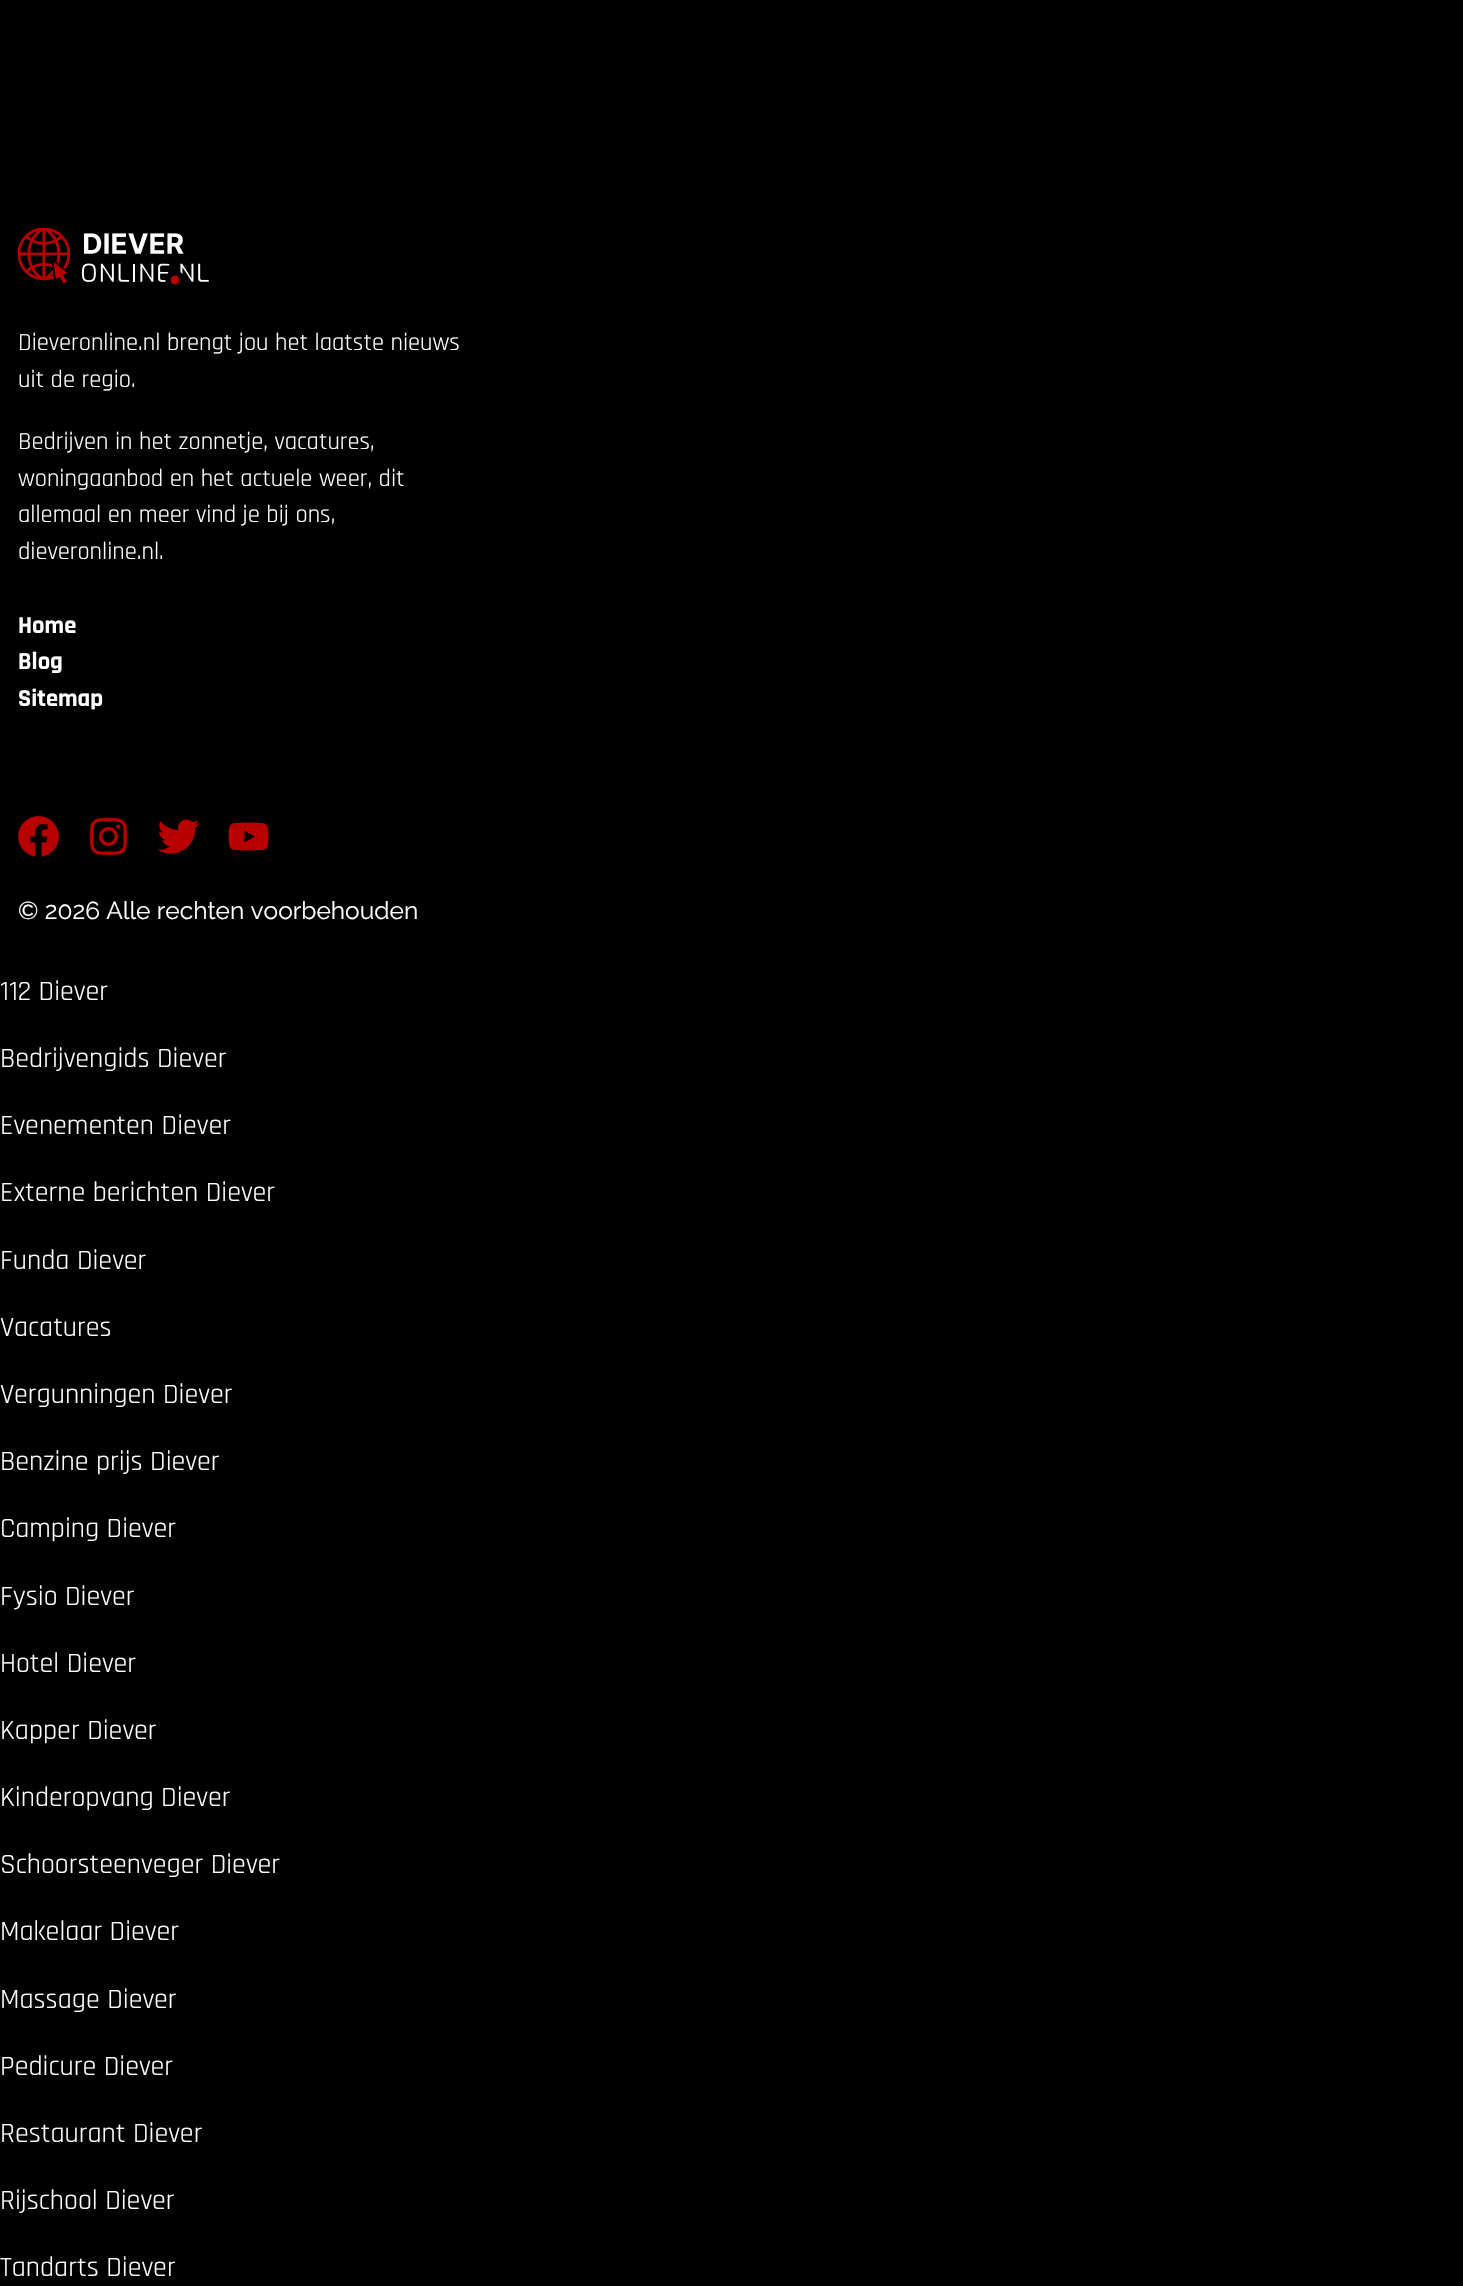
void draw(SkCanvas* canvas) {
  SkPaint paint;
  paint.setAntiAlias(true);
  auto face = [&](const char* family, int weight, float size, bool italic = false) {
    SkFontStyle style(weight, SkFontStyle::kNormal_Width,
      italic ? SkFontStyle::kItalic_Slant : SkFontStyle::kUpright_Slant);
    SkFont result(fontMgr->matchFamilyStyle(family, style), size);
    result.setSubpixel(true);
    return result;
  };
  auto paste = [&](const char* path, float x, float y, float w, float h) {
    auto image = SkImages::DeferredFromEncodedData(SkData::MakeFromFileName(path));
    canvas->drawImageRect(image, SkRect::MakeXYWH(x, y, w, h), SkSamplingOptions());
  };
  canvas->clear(0xff000000);
  paste("img/1.png", 18, 228, 191, 57);
  paste("img/2.png", 18, 816, 41, 41);
  paste("img/3.png", 90, 818, 37, 37);
  paste("img/4.png", 158, 819, 42, 35);
  paste("img/5.png", 228, 822, 41, 29);
  auto f0 = face("Rajdhani", 400, 24.5f);
  paint.setColor(0xffffffff);
  {
    const struct { const char* s; float x, y; } items[] = {
      {"Dieveronline.nl brengt jou het laatste nieuws", 18, 350},
      {"uit de regio.", 18, 387},
      {"Bedrijven in het zonnetje, vacatures,", 18, 449},
      {"woningaanbod en het actuele weer, dit", 18, 486},
      {"allemaal en meer vind je bij ons,", 18, 522},
      {"dieveronline.nl.", 18, 559},
    };
    for (auto [s, x, y] : items) {
      canvas->drawString(s, x, y, f0, paint);
    }
  }
  auto f1 = face("Rajdhani", 700, 24.5f);
  {
    const struct { const char* s; float x, y; } items[] = {
      {"Home", 18, 633},
      {"Blog", 18, 669},
      {"Sitemap", 18, 706},
    };
    for (auto [s, x, y] : items) {
      canvas->drawString(s, x, y, f1, paint);
    }
  }
  auto f2 = face("Raleway", 400, 24.5f);
  canvas->drawString("© 2026 Alle rechten voorbehouden", 18, 919, f2, paint);
  auto f3 = face("Rajdhani", 400, 28);
  {
    const struct { const char* s; float x, y; } items[] = {
      {"112 Diever", 0, 1000},
      {"Bedrijvengids Diever", 0, 1067},
      {"Evenementen Diever", 0, 1134},
      {"Externe berichten Diever", 0, 1201},
      {"Funda Diever", 0, 1269},
      {"Vacatures", 0, 1336},
      {"Vergunningen Diever", 0, 1403},
      {"Benzine prijs Diever", 0, 1470},
      {"Camping Diever", 0, 1537},
      {"Fysio Diever", 0, 1605},
      {"Hotel Diever", 0, 1672},
      {"Kapper Diever", 0, 1739},
      {"Kinderopvang Diever", 0, 1806},
      {"Schoorsteenveger Diever", 0, 1873},
      {"Makelaar Diever", 0, 1940},
      {"Massage Diever", 0, 2008},
      {"Pedicure Diever", 0, 2075},
      {"Restaurant Diever", 0, 2142},
      {"Rijschool Diever", 0, 2209},
      {"Tandarts Diever", 0, 2276},
    };
    for (auto [s, x, y] : items) {
      canvas->drawString(s, x, y, f3, paint);
    }
  }
}
